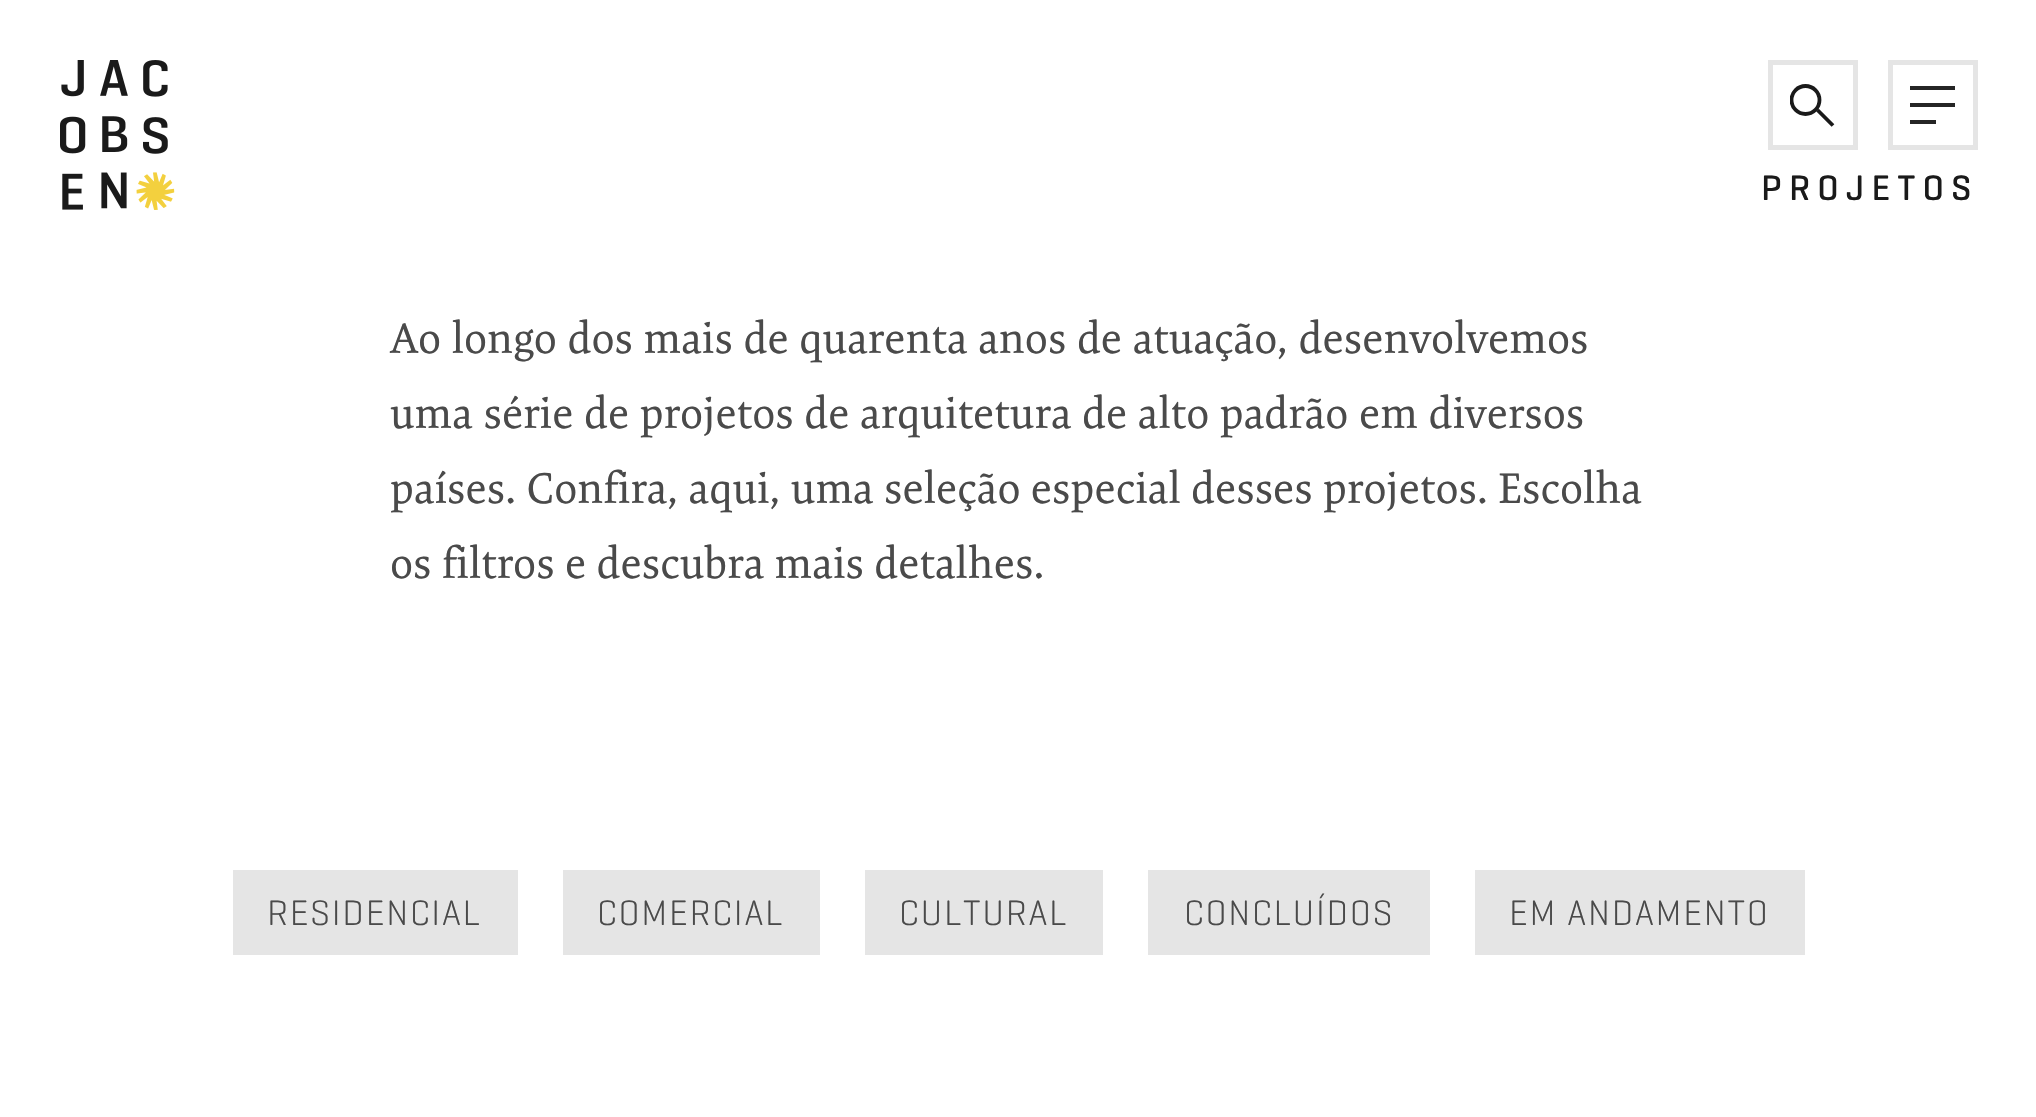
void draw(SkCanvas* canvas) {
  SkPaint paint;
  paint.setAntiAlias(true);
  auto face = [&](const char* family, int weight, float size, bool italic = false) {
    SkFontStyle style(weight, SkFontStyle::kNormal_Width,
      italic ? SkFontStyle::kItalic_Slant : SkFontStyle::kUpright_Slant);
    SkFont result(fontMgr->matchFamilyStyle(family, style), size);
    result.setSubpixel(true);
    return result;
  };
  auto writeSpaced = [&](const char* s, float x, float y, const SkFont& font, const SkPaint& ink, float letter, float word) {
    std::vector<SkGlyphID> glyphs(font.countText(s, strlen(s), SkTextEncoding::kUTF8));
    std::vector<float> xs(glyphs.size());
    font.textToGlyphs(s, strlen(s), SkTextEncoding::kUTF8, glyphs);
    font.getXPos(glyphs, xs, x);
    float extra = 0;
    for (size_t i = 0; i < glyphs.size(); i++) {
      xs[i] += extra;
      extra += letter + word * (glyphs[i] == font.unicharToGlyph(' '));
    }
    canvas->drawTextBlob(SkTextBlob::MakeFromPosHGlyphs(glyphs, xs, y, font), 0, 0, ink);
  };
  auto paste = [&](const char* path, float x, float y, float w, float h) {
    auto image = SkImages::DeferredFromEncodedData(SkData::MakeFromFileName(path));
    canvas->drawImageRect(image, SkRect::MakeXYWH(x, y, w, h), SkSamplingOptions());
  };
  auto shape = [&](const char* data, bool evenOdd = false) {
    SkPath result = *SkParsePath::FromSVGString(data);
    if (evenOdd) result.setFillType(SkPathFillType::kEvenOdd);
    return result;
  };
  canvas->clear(0xffffffff);
  paste("img/1.png", 60, 60, 115, 150);
  paint.setStroke(true);
  paint.setStrokeWidth(5);
  paint.setColor(0xffe5e5e5);
  canvas->drawRect(SkRect::MakeXYWH(1770.5f, 62.5f, 85, 85), paint);
  canvas->save();
  canvas->clipRect(SkRect::MakeXYWH(1790, 83, 45, 45));
  paint.setStrokeWidth(3.8f);
  paint.setColor(0xff1a1a1a);
  canvas->drawCircle(1805.5f, 100, 14, paint);
  canvas->restore();
  canvas->drawPath(shape("M1817.5 110L1833 125.5"), paint);
  paint.setStrokeWidth(5);
  paint.setColor(0xffe5e5e5);
  canvas->drawRect(SkRect::MakeXYWH(1890.5f, 62.5f, 85, 85), paint);
  paint.setStroke(false);
  {
    const struct { float x, y, w, h; SkColor color; } items[] = {
      {1910, 103, 45, 4, 0xff252525},
      {1910, 120, 26, 4, 0xff252525},
      {1910, 86, 45, 4, 0xff252525},
      {233, 870, 285, 85, 0xffe5e5e5},
      {563, 870, 257, 85, 0xffe5e5e5},
      {865, 870, 238, 85, 0xffe5e5e5},
      {1148, 870, 282, 85, 0xffe5e5e5},
      {1475, 870, 330, 85, 0xffe5e5e5},
    };
    for (auto [x, y, w, h, color] : items) {
      paint.setColor(color);
      canvas->drawRect(SkRect::MakeXYWH(x, y, w, h), paint);
    }
  }
  auto f0 = face("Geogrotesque", 500, 36);
  paint.setColor(0xff1a1a1a);
  writeSpaced("PROJETOS", 1761, 200, f0, paint, 7.25f, 0);
  auto f1 = face("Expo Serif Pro", 400, 43.2f);
  paint.setColor(0xff4a4a4a);
  writeSpaced("Ao longo dos mais de quarenta anos de atuação, desenvolvemos", 390, 353, f1, paint, 0, -0.25f);
  writeSpaced("uma série de projetos de arquitetura de alto padrão em diversos", 390, 428, f1, paint, 0, -0.25f);
  writeSpaced("países. Confira, aqui, uma seleção especial desses projetos. Escolha", 390, 503, f1, paint, 0, -0.5f);
  writeSpaced("os filtros e descubra mais detalhes.", 390, 578, f1, paint, 0, -0.5f);
  auto f2 = face("Geogrotesque", 300, 36);
  {
    const struct { const char* s; float x, y; } items[] = {
      {"RESIDENCIAL", 267, 925},
      {"COMERCIAL", 597, 925},
      {"CULTURAL", 899, 925},
      {"CONCLUÍDOS", 1184, 925},
      {"EM ANDAMENTO", 1509, 925},
    };
    for (auto [s, x, y] : items) {
      writeSpaced(s, x, y, f2, paint, 1.75f, 0);
    }
  }
}
